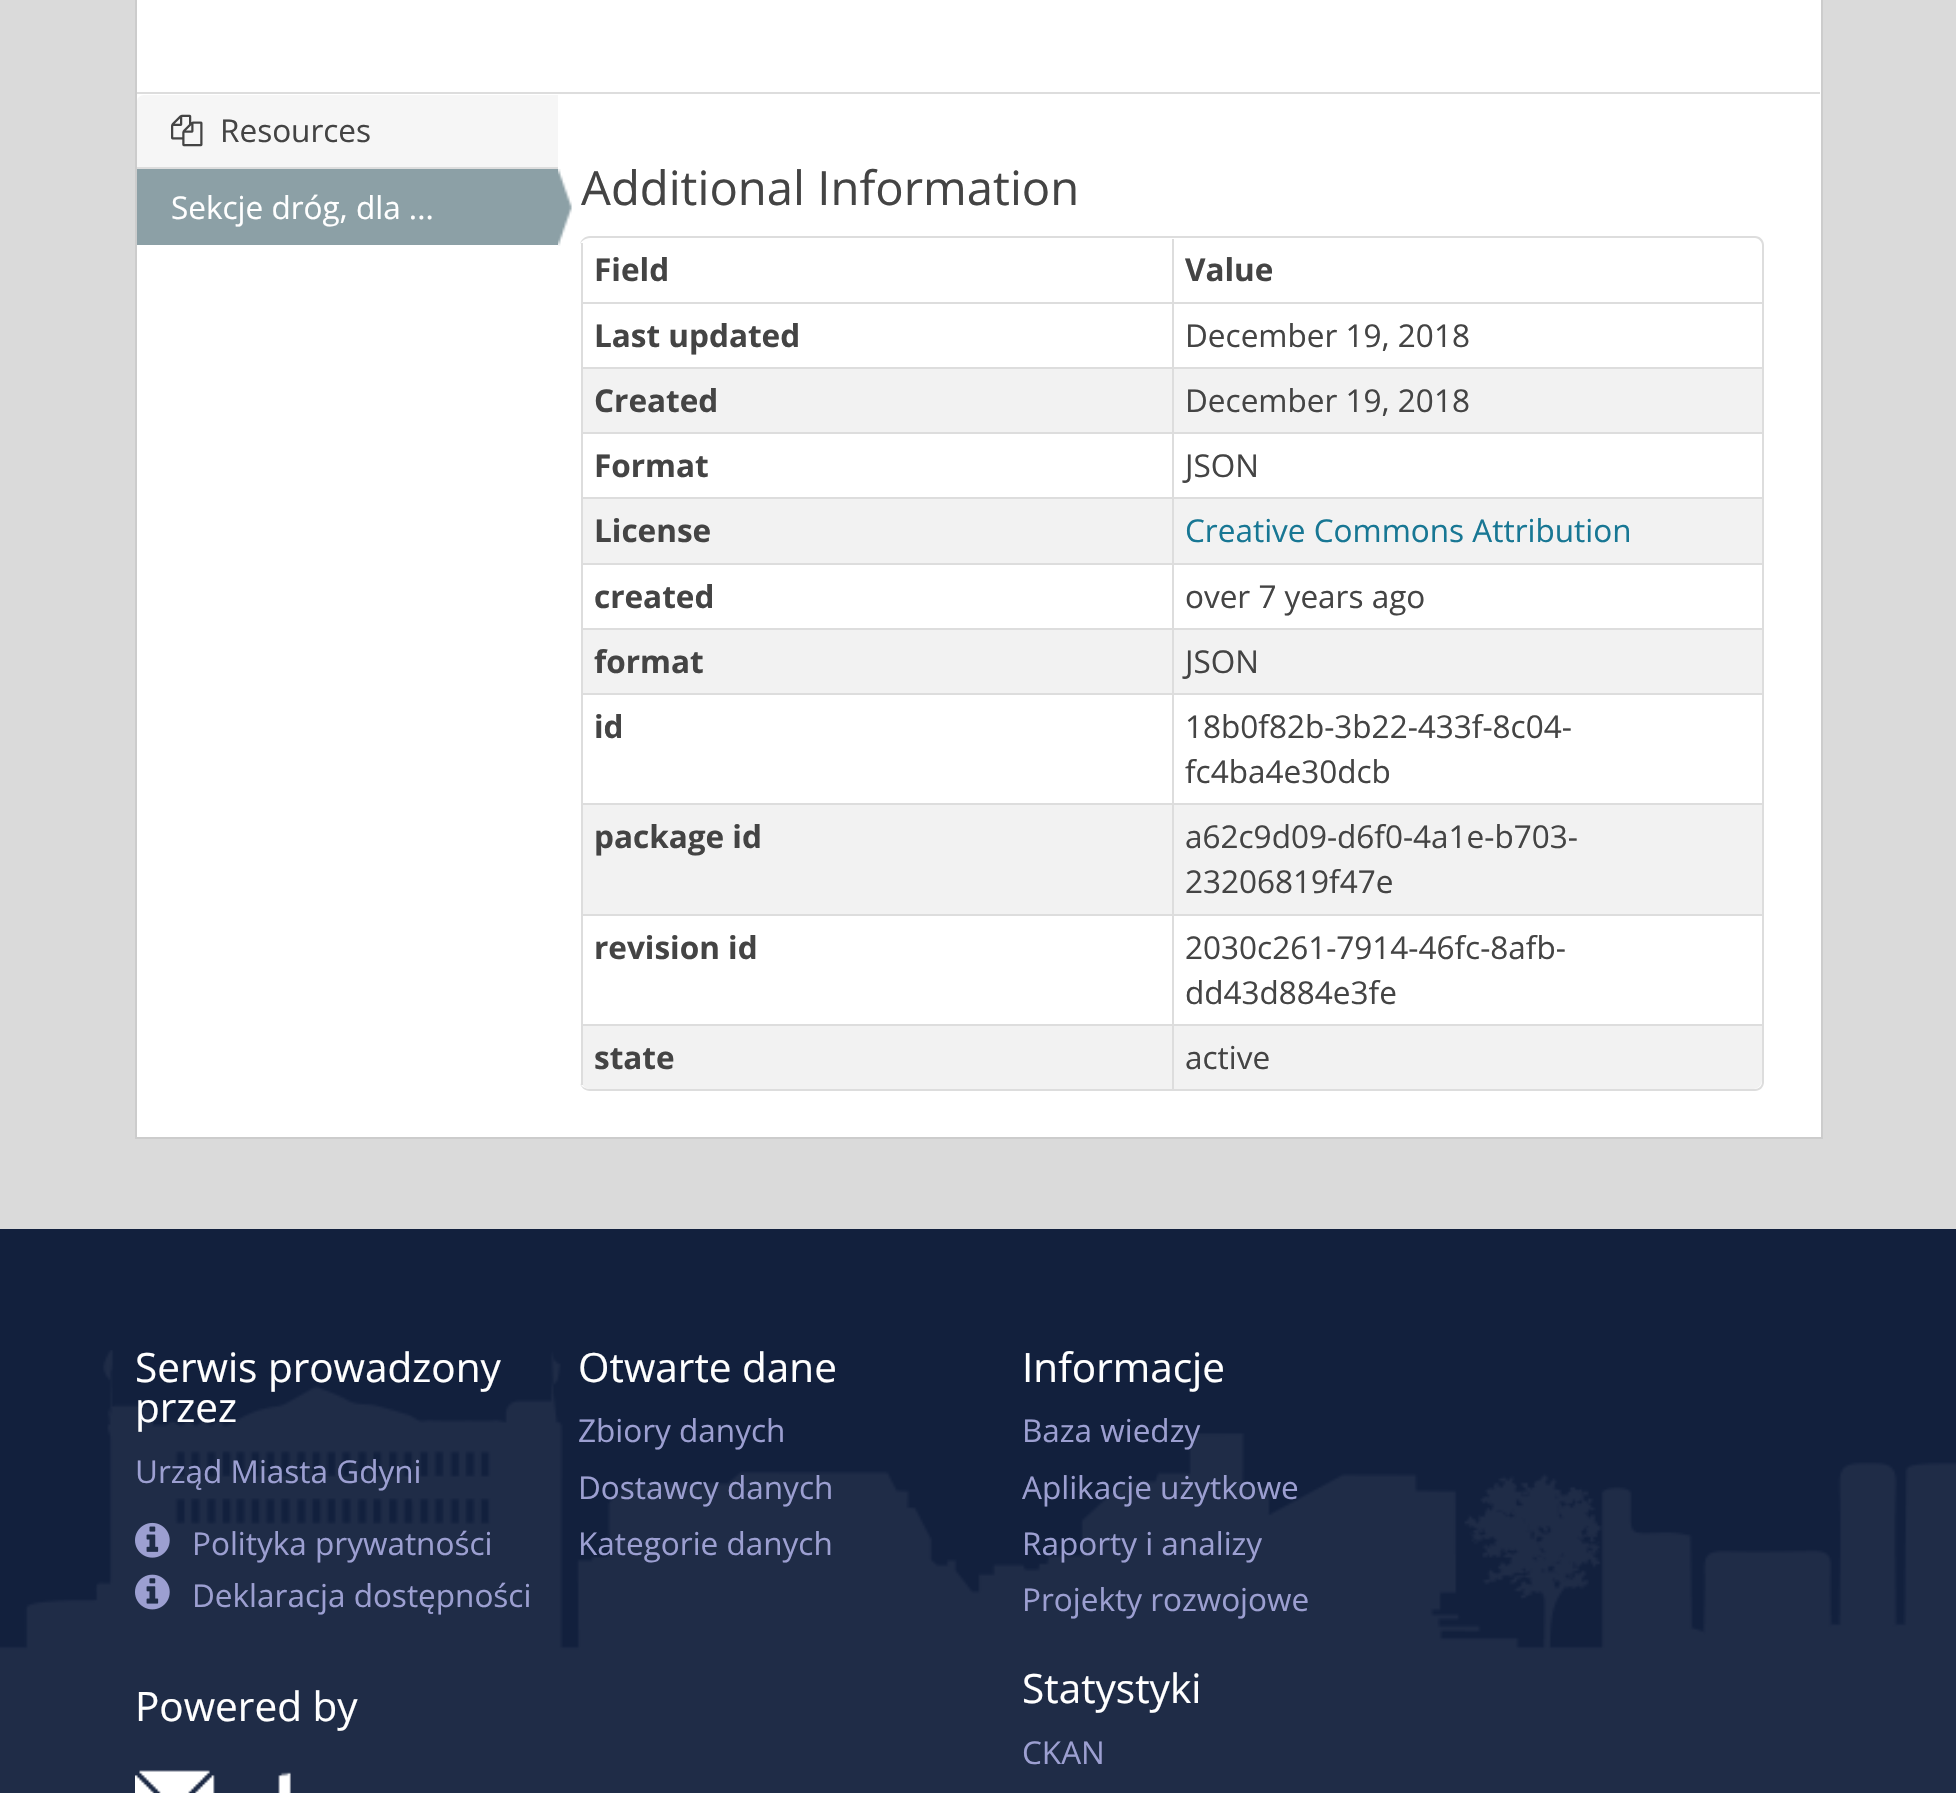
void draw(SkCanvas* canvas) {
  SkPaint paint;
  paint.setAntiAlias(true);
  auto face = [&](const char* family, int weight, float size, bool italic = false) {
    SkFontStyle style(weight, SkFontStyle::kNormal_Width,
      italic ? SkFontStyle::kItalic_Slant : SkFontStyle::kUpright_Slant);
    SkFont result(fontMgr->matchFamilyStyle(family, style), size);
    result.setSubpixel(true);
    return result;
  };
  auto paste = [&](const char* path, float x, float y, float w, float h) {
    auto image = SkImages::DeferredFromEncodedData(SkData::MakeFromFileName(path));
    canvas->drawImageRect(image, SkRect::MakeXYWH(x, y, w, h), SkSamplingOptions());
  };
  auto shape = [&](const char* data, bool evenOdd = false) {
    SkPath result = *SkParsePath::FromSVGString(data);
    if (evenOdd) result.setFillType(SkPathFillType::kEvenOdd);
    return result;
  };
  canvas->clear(0xffdadada);
  paint.setColor(0xffffffff);
  canvas->drawRect(SkRect::MakeXYWH(136, -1, 1686, 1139), paint);
  paint.setStroke(true);
  paint.setStrokeWidth(2);
  paint.setColor(0xffcccccc);
  canvas->drawRect(SkRect::MakeXYWH(136, -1, 1686, 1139), paint);
  paint.setStroke(false);
  paint.setColor(0xffdddddd);
  canvas->drawRect(SkRect::MakeXYWH(137, 92, 1683, 2), paint);
  paint.setColor(0xfff6f6f6);
  canvas->drawPath(shape("M144 95H558V169H137V102C137 98 140 95 144 95Z"), paint);
  paint.setColor(0xffdddddd);
  canvas->drawRect(SkRect::MakeXYWH(137, 167, 421, 2), paint);
  paste("img/1.png", 171, 114, 32, 33);
  paint.setColor(0xff8ca0a6);
  canvas->drawRect(SkRect::MakeXYWH(137, 169, 421, 76), paint);
  paste("img/2.png", 558, 169, 14, 77);
  paint.setColor(0xffdddddd);
  canvas->drawPath(shape("M590 236H1755C1760 236 1764 240 1764 245V1082C1764 1087 1760 1091 1755 1091H590C585 1091 580 1087 580 1082V245C580 240 585 236 590 236ZM590 238H1755C1759 238 1762 242 1762 245V1082C1762 1086 1759 1089 1755 1089H590C585 1089 580 1086 580 1082V245C580 242 585 238 590 238Z", true), paint);
  {
    const struct { float x, y, w, h; SkColor color; } items[] = {
      {581, 243, 2, 59, 0xffdddddd},
      {1172, 239, 2, 63, 0xffdddddd},
      {581, 302, 1181, 2, 0xffdddddd},
      {581, 302, 2, 65, 0xffdddddd},
      {1172, 302, 2, 65, 0xffdddddd},
      {583, 369, 589, 63, 0xfff2f2f2},
      {581, 367, 1181, 2, 0xffdddddd},
      {581, 367, 2, 65, 0xffdddddd},
      {1174, 369, 588, 63, 0xfff2f2f2},
      {1172, 367, 2, 65, 0xffdddddd},
      {581, 432, 1181, 2, 0xffdddddd},
      {581, 432, 2, 65, 0xffdddddd},
      {1172, 432, 2, 65, 0xffdddddd},
      {583, 499, 589, 64, 0xfff2f2f2},
      {581, 497, 1181, 2, 0xffdddddd},
      {581, 497, 2, 66, 0xffdddddd},
      {1174, 499, 588, 64, 0xfff2f2f2},
      {1172, 497, 2, 66, 0xffdddddd},
      {581, 563, 1181, 2, 0xffdddddd},
      {581, 563, 2, 65, 0xffdddddd},
      {1172, 563, 2, 65, 0xffdddddd},
      {583, 630, 589, 63, 0xfff2f2f2},
      {581, 628, 1181, 2, 0xffdddddd},
      {581, 628, 2, 65, 0xffdddddd},
      {1174, 630, 588, 63, 0xfff2f2f2},
      {1172, 628, 2, 65, 0xffdddddd},
      {581, 693, 1181, 2, 0xffdddddd},
      {581, 693, 2, 110, 0xffdddddd},
      {1172, 693, 2, 110, 0xffdddddd},
      {583, 805, 589, 109, 0xfff2f2f2},
      {581, 803, 1181, 2, 0xffdddddd},
      {581, 803, 2, 111, 0xffdddddd},
      {1174, 805, 588, 109, 0xfff2f2f2},
      {1172, 803, 2, 111, 0xffdddddd},
      {581, 914, 1181, 2, 0xffdddddd},
      {581, 914, 2, 110, 0xffdddddd},
      {1172, 914, 2, 110, 0xffdddddd},
    };
    for (auto [x, y, w, h, color] : items) {
      paint.setColor(color);
      canvas->drawRect(SkRect::MakeXYWH(x, y, w, h), paint);
    }
  }
  paint.setColor(0xfff2f2f2);
  canvas->drawPath(shape("M581 1024H1172V1089H590C585 1089 581 1085 581 1080Z"), paint);
  paint.setColor(0xffdddddd);
  canvas->drawRect(SkRect::MakeXYWH(581, 1024, 591, 2), paint);
  canvas->drawRect(SkRect::MakeXYWH(581, 1024, 2, 61), paint);
  paint.setColor(0xfff2f2f2);
  canvas->drawPath(shape("M1172 1024H1762V1080C1762 1085 1758 1089 1753 1089H1172Z"), paint);
  {
    const struct { float x, y, w, h; SkColor color; } items[] = {
      {1172, 1024, 590, 2, 0xffdddddd},
      {1172, 1024, 2, 65, 0xffdddddd},
      {0, 1229, 1956, 564, 0xff12203d},
    };
    for (auto [x, y, w, h, color] : items) {
      paint.setColor(color);
      canvas->drawRect(SkRect::MakeXYWH(x, y, w, h), paint);
    }
  }
  paste("img/3.png", 0, 1350, 1956, 443);
  paste("img/4.png", 135, 1522, 35, 36);
  paste("img/5.png", 135, 1574, 35, 36);
  paste("img/6.png", 135, 1770, 156, 23);
  auto f0 = face("Open Sans", 400, 31.5f);
  paint.setColor(0xff444444);
  canvas->drawString("Resources", 220, 142, f0, paint);
  paint.setColor(0xffffffff);
  canvas->drawString("Sekcje dróg, dla ...", 171, 219, f0, paint);
  auto f1 = face("Open Sans", 400, 47.25f);
  paint.setColor(0xff444444);
  canvas->drawString("Additional Information", 581, 205, f1, paint);
  auto f2 = face("Open Sans", 700, 31.5f);
  {
    const struct { const char* s; float x, y; } items[] = {
      {"Field", 594, 281},
      {"Value", 1185, 281},
      {"Last updated", 594, 347},
    };
    for (auto [s, x, y] : items) {
      canvas->drawString(s, x, y, f2, paint);
    }
  }
  canvas->drawString("December 19, 2018", 1185, 347, f0, paint);
  canvas->drawString("Created", 594, 412, f2, paint);
  canvas->drawString("December 19, 2018", 1185, 412, f0, paint);
  canvas->drawString("Format", 594, 477, f2, paint);
  canvas->drawString("JSON", 1185, 477, f0, paint);
  canvas->drawString("License", 594, 542, f2, paint);
  paint.setColor(0xff187794);
  canvas->drawString("Creative Commons Attribution", 1185, 542, f0, paint);
  paint.setColor(0xff444444);
  canvas->drawString("created", 594, 608, f2, paint);
  canvas->drawString("over 7 years ago", 1185, 608, f0, paint);
  canvas->drawString("format", 594, 673, f2, paint);
  canvas->drawString("JSON", 1185, 673, f0, paint);
  canvas->drawString("id", 594, 738, f2, paint);
  canvas->drawString("18b0f82b-3b22-433f-8c04-", 1185, 738, f0, paint);
  canvas->drawString("fc4ba4e30dcb", 1185, 783, f0, paint);
  canvas->drawString("package id", 594, 848, f2, paint);
  canvas->drawString("a62c9d09-d6f0-4a1e-b703-", 1185, 848, f0, paint);
  canvas->drawString("23206819f47e", 1185, 893, f0, paint);
  canvas->drawString("revision id", 594, 959, f2, paint);
  canvas->drawString("2030c261-7914-46fc-8afb-", 1185, 959, f0, paint);
  canvas->drawString("dd43d884e3fe", 1185, 1004, f0, paint);
  canvas->drawString("state", 594, 1069, f2, paint);
  canvas->drawString("active", 1185, 1069, f0, paint);
  auto f3 = face("Open Sans", 400, 40.5f);
  paint.setColor(0xffffffff);
  canvas->drawString("Serwis prowadzony", 135, 1382, f3, paint);
  canvas->drawString("przez", 135, 1422, f3, paint);
  paint.setColor(0xff9c9fd1);
  {
    const struct { const char* s; float x, y; } items[] = {
      {"Urząd Miasta Gdyni", 135, 1483},
      {"Polityka prywatności", 192, 1555},
      {"Deklaracja dostępności", 192, 1607},
    };
    for (auto [s, x, y] : items) {
      canvas->drawString(s, x, y, f0, paint);
    }
  }
  paint.setColor(0xffffffff);
  canvas->drawString("Powered by", 135, 1721, f3, paint);
  canvas->drawString("Otwarte dane", 578, 1382, f3, paint);
  paint.setColor(0xff9c9fd1);
  {
    const struct { const char* s; float x, y; } items[] = {
      {"Zbiory danych", 578, 1442},
      {"Dostawcy danych", 578, 1499},
      {"Kategorie danych", 578, 1555},
    };
    for (auto [s, x, y] : items) {
      canvas->drawString(s, x, y, f0, paint);
    }
  }
  paint.setColor(0xffffffff);
  canvas->drawString("Informacje", 1022, 1382, f3, paint);
  paint.setColor(0xff9c9fd1);
  {
    const struct { const char* s; float x, y; } items[] = {
      {"Baza wiedzy", 1022, 1442},
      {"Aplikacje użytkowe", 1022, 1499},
      {"Raporty i analizy", 1022, 1555},
      {"Projekty rozwojowe", 1022, 1611},
    };
    for (auto [s, x, y] : items) {
      canvas->drawString(s, x, y, f0, paint);
    }
  }
  paint.setColor(0xffffffff);
  canvas->drawString("Statystyki", 1022, 1703, f3, paint);
  paint.setColor(0xff9c9fd1);
  canvas->drawString("CKAN", 1022, 1764, f0, paint);
}
